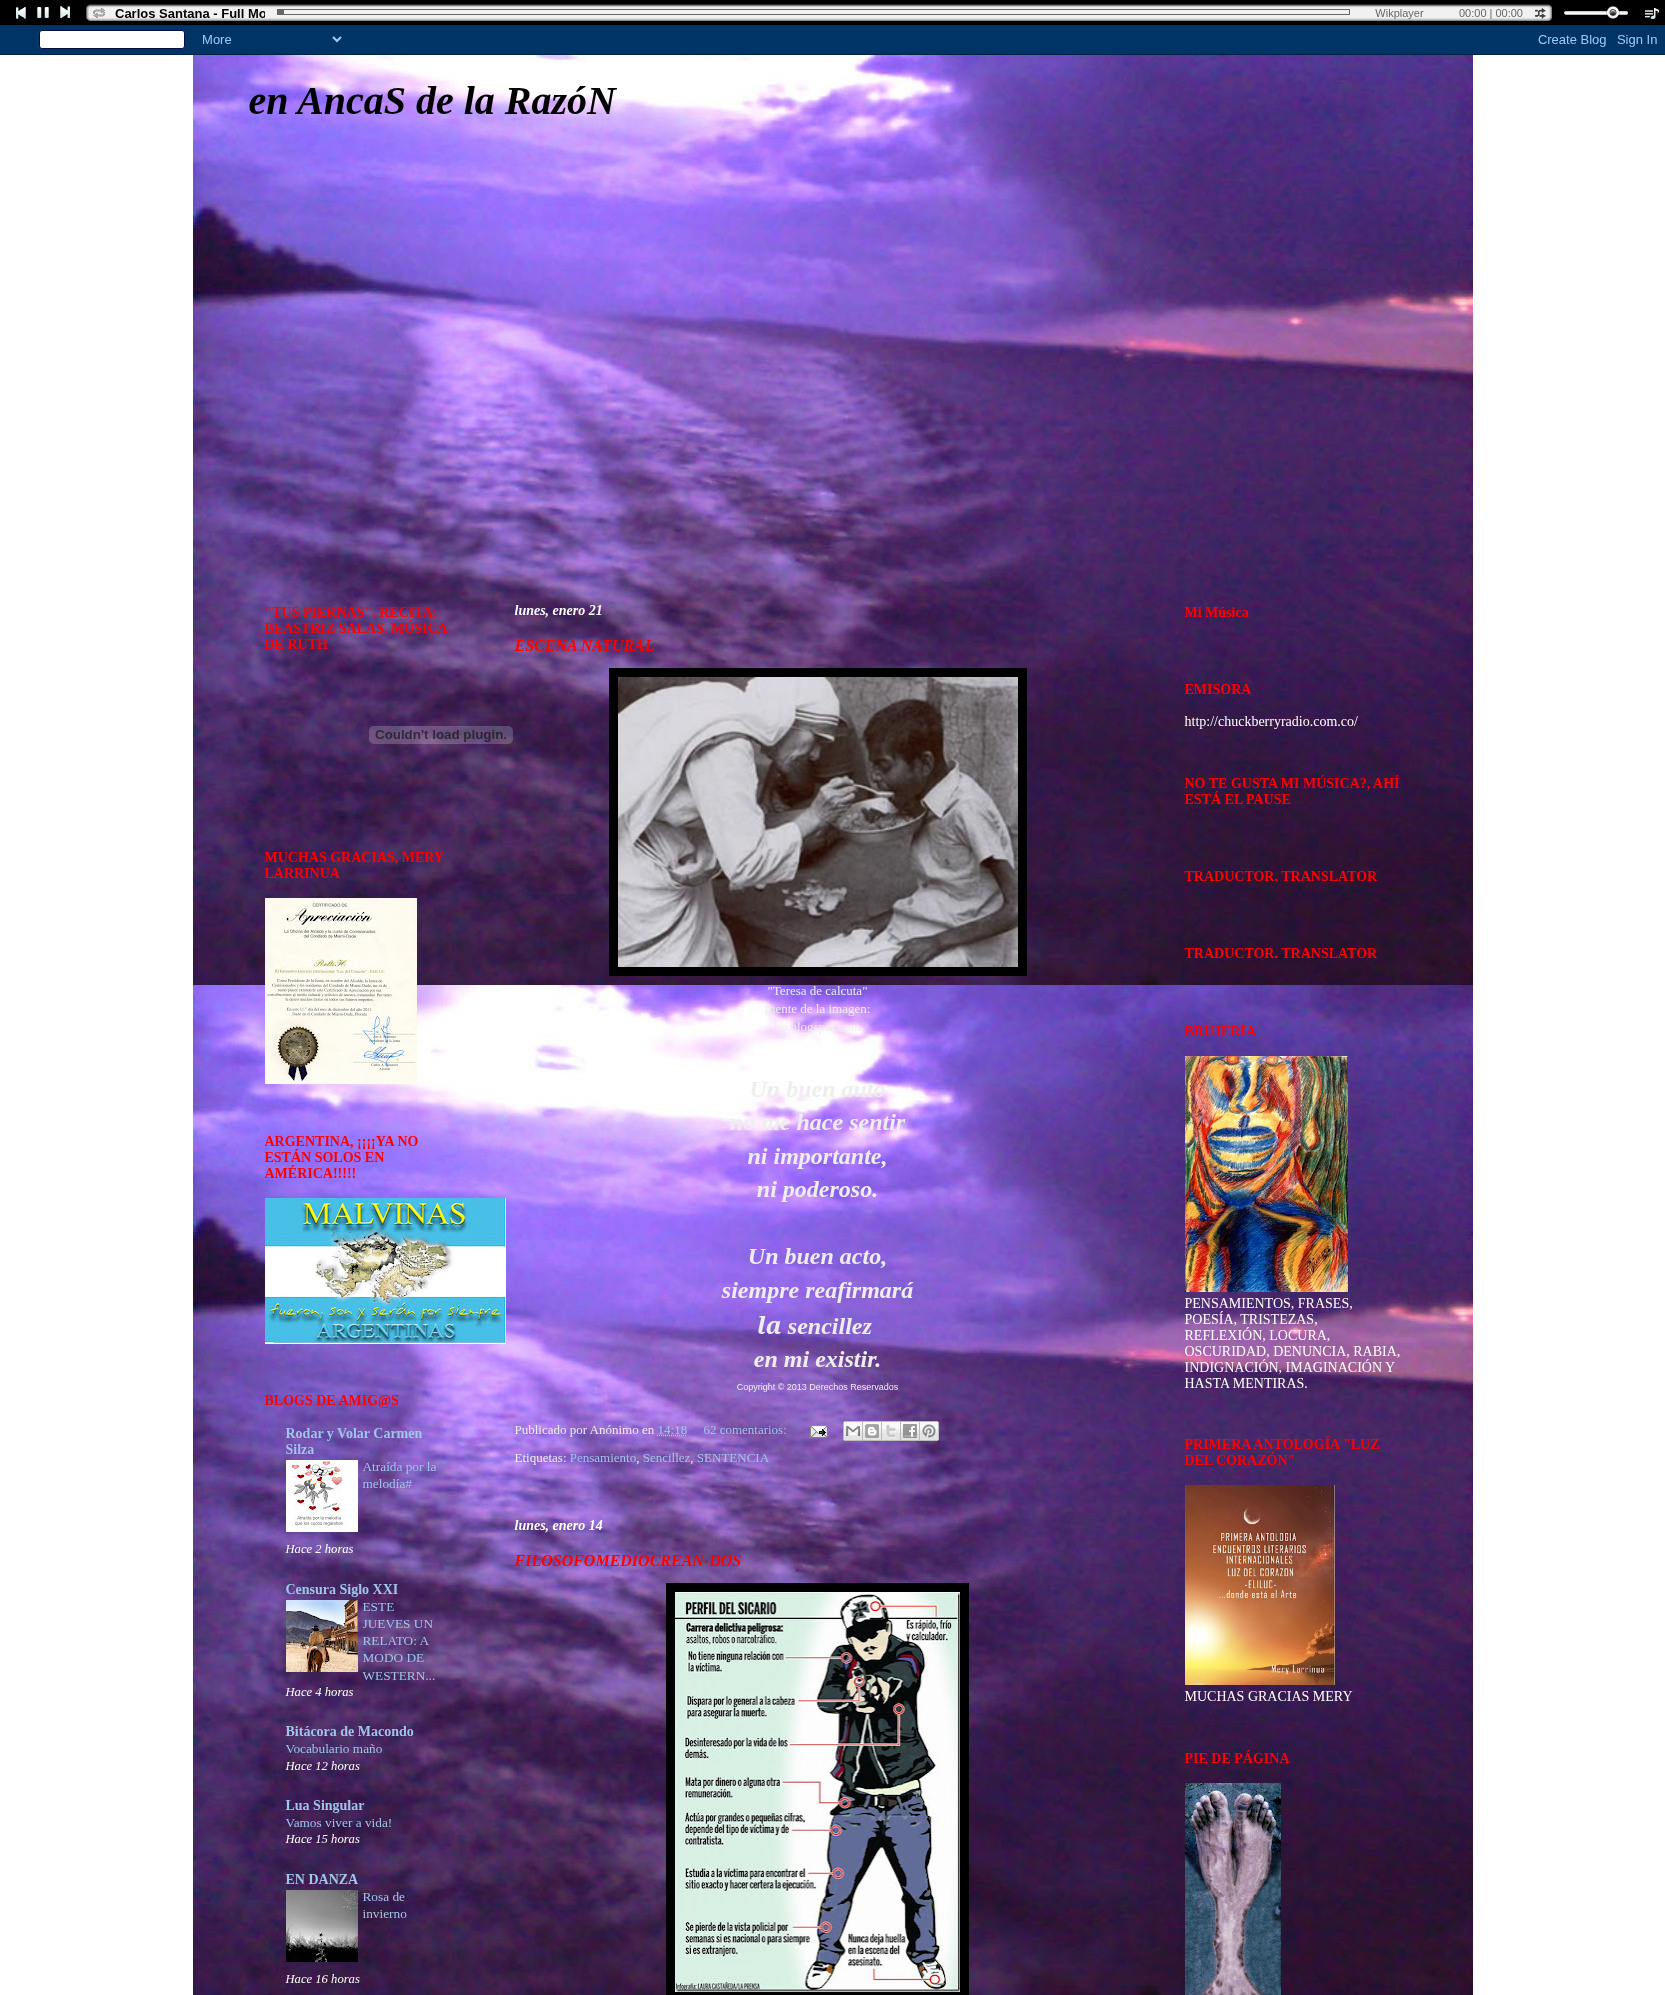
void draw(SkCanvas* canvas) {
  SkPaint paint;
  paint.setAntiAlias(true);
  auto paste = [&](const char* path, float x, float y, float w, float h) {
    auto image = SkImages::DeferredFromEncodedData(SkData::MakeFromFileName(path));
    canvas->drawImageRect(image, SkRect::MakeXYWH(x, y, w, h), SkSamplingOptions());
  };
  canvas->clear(0xffffffff);
  paste("img/1.png", 0, 0, 1665, 1995);
}
